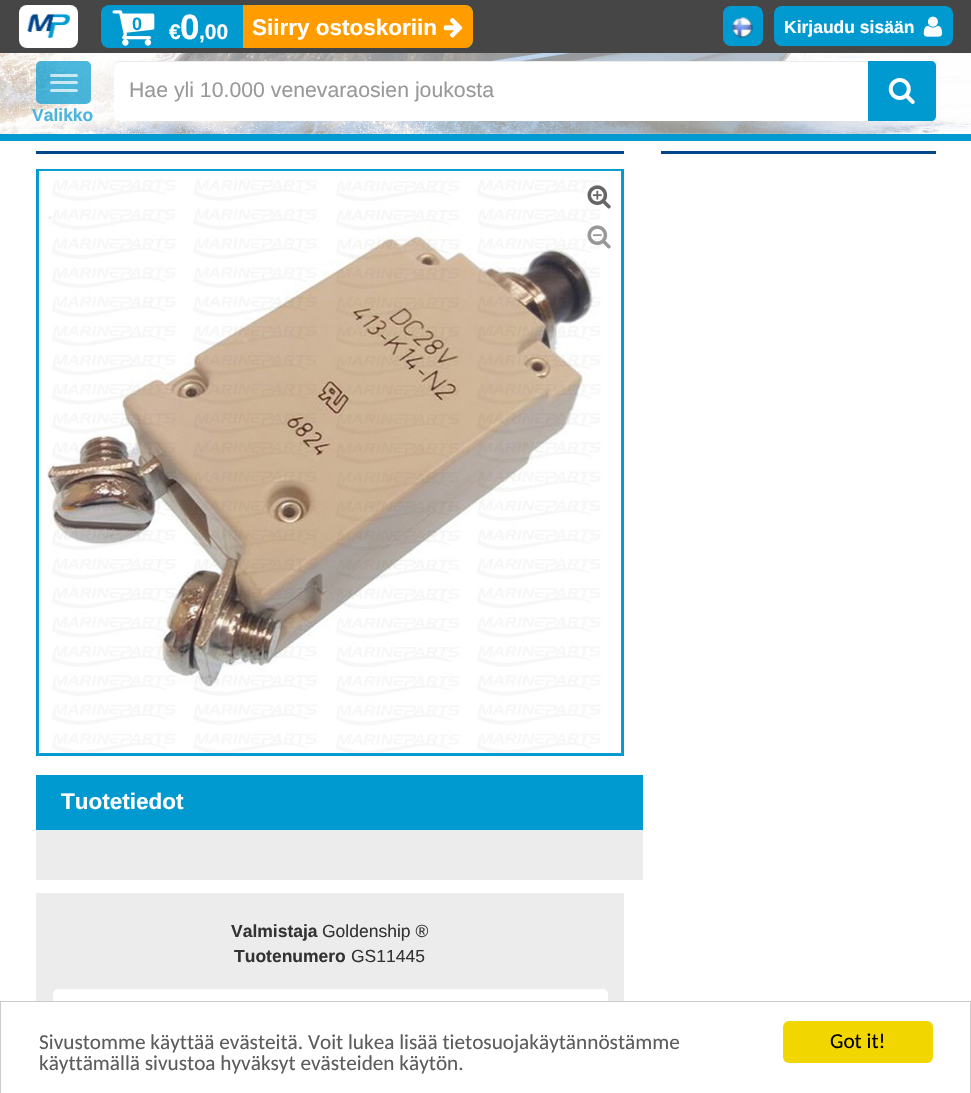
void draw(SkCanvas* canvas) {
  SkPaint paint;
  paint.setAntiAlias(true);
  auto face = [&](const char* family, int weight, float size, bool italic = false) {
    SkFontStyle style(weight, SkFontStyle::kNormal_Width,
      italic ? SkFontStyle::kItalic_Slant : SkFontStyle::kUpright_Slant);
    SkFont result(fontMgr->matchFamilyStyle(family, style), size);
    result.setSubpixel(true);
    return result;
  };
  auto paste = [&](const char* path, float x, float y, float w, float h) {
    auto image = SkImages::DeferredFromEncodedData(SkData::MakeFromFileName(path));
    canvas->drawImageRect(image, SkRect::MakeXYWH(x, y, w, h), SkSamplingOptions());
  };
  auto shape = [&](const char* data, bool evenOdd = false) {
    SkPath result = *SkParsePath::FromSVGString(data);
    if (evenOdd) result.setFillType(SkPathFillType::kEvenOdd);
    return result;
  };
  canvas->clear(0xffffffff);
  paint.setColor(0xff464646);
  canvas->drawRect(SkRect::MakeXYWH(0, 0, 971, 53), paint);
  paint.setColor(0xffffffff);
  canvas->drawRoundRect(SkRect::MakeXYWH(19, 5, 59, 43), 8, 8, paint);
  paste("img/1.png", 27, 13, 44, 26);
  paint.setColor(0xff009ad0);
  canvas->drawRoundRect(SkRect::MakeXYWH(101, 5, 372, 43), 8, 8, paint);
  paste("img/2.png", 112, 10, 43, 36);
  paint.setColor(0xffff9c00);
  canvas->drawPath(shape("M243 5H465C469.5 5 473 8.5 473 13V40C473 44.5 469.5 48 465 48H243Z"), paint);
  paste("img/3.png", 443, 18, 20, 20);
  paint.setColor(0xff009ad0);
  canvas->drawRoundRect(SkRect::MakeXYWH(723, 6, 40, 40), 8, 8, paint);
  paste("img/4.png", 732, 17, 21, 21);
  canvas->drawRoundRect(SkRect::MakeXYWH(774, 6, 179, 40), 8, 8, paint);
  paste("img/5.png", 923, 16, 20, 21);
  paste("img/6.png", 0, 53, 971, 81);
  canvas->drawRect(SkRect::MakeXYWH(0, 134, 971, 7), paint);
  paint.setColor(0xffffffff);
  canvas->drawPath(shape("M119 61H868V121H119C116 121 114 119 114 116V66C114 63 116 61 119 61Z"), paint);
  paint.setColor(0xffececec);
  canvas->drawPath(shape("M119 62H868V61H119C115 61 114 65 114 68C114 65 116 62 119 62Z"), paint);
  paint.setColor(0xff009ad0);
  canvas->drawPath(shape("M868 61H931C934 61 936 63 936 66V116C936 119 934 121 931 121H868Z"), paint);
  paste("img/7.png", 888, 78, 27, 26);
  paint.setColor(0xb3009ad0);
  canvas->drawRoundRect(SkRect::MakeXYWH(36, 61, 55, 43), 5, 5, paint);
  paint.setColor(0xb3ffffff);
  canvas->drawRoundRect(SkRect::MakeXYWH(50, 74, 28, 3), 1.5f, 1.5f, paint);
  canvas->drawRoundRect(SkRect::MakeXYWH(50, 81, 28, 3), 1.5f, 1.5f, paint);
  canvas->drawRoundRect(SkRect::MakeXYWH(50, 89, 28, 3), 1.5f, 1.5f, paint);
  paint.setColor(0xff004789);
  canvas->drawRect(SkRect::MakeXYWH(661, 151, 275, 3), paint);
  canvas->drawRect(SkRect::MakeXYWH(36, 151, 588, 3), paint);
  paint.setStroke(true);
  paint.setStrokeWidth(3);
  paint.setColor(0xff009ad0);
  canvas->drawRect(SkRect::MakeXYWH(37.5f, 170.5f, 585, 584), paint);
  paste("img/8.png", 38, 170, 584, 584);
  paste("img/9.png", 587, 185, 24, 24);
  paste("img/10.png", 587, 225, 24, 24);
  paint.setStroke(false);
  {
    const struct { float x, y, w, h; SkColor color; } items[] = {
      {36, 830, 607, 50, 0xffececec},
      {36, 775, 607, 55, 0xff009ad0},
      {36, 893, 588, 108, 0xffececec},
    };
    for (auto [x, y, w, h, color] : items) {
      paint.setColor(color);
      canvas->drawRect(SkRect::MakeXYWH(x, y, w, h), paint);
    }
  }
  paint.setColor(0xffffffff);
  canvas->drawRoundRect(SkRect::MakeXYWH(53, 989, 555, 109), 5, 5, paint);
  paint.setStroke(true);
  paint.setStrokeWidth(1);
  paint.setColor(0xffcccccc);
  canvas->drawRect(SkRect::MakeXYWH(0.5f, 1001.5f, 970, 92), paint);
  paint.setStroke(false);
  paint.setColor(0xfff1d600);
  canvas->drawRoundRect(SkRect::MakeXYWH(783, 1021, 150, 42), 6, 6, paint);
  auto f0 = face("Liberation Sans", 700, 18);
  paint.setColor(0xff009ad0);
  canvas->drawString("0", 132, 30, f0, paint);
  auto f1 = face("Liberation Sans", 700, 21);
  paint.setColor(0xffffffff);
  canvas->drawString("€", 169, 39, f1, paint);
  auto f2 = face("Liberation Sans", 700, 35);
  canvas->drawString("0", 180, 39, f2, paint);
  canvas->drawString(",00", 199, 39, f1, paint);
  auto f3 = face("Liberation Sans", 700, 22.5f);
  canvas->drawString("Siirry ostoskoriin", 252, 35, f3, paint);
  auto f4 = face("Liberation Sans", 700, 17.5f);
  canvas->drawString("Kirjaudu sisään", 784, 33, f4, paint);
  auto f5 = face("Liberation Sans", 400, 21.25f);
  paint.setColor(0xff999999);
  canvas->drawString("Hae yli 10.000 venevaraosien joukosta", 129, 97, f5, paint);
  paint.setColor(0xff4bb6db);
  canvas->drawString("Valikko", 32, 121, f4, paint);
  paint.setColor(0xffffffff);
  canvas->drawString("Tuotetiedot", 61, 809, f3, paint);
  paint.setColor(0xff333333);
  canvas->drawString("Valmistaja", 231, 937, f4, paint);
  auto f6 = face("Liberation Sans", 400, 17.5f);
  canvas->drawString("Goldenship ®", 322, 937, f6, paint);
  canvas->drawString("Tuotenumero", 234, 962, f4, paint);
  canvas->drawString("GS11445", 351, 962, f6, paint);
  auto f7 = face("Carlito", 400, 21.25f);
  paint.setColor(0xff5c5c5c);
  canvas->drawString("Sivustomme käyttää evästeitä. Voit lukea lisää tietosuojakäytännöstämme", 39, 1049, f7, paint);
  canvas->drawString("käyttämällä sivustoa hyväksyt evästeiden käytön.", 39, 1070, f7, paint);
  paint.setColor(0xff000000);
  canvas->drawString("Got it!", 830, 1048, f7, paint);
}
